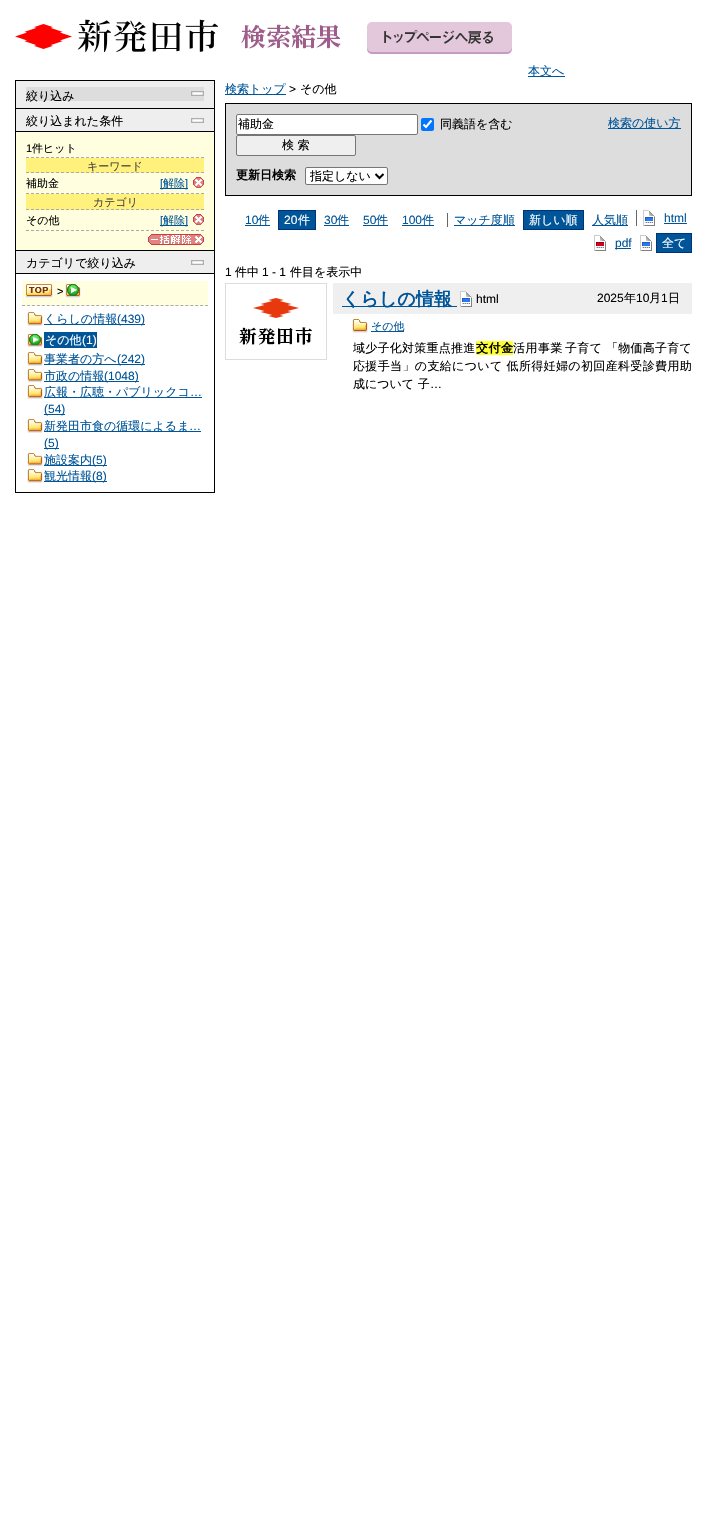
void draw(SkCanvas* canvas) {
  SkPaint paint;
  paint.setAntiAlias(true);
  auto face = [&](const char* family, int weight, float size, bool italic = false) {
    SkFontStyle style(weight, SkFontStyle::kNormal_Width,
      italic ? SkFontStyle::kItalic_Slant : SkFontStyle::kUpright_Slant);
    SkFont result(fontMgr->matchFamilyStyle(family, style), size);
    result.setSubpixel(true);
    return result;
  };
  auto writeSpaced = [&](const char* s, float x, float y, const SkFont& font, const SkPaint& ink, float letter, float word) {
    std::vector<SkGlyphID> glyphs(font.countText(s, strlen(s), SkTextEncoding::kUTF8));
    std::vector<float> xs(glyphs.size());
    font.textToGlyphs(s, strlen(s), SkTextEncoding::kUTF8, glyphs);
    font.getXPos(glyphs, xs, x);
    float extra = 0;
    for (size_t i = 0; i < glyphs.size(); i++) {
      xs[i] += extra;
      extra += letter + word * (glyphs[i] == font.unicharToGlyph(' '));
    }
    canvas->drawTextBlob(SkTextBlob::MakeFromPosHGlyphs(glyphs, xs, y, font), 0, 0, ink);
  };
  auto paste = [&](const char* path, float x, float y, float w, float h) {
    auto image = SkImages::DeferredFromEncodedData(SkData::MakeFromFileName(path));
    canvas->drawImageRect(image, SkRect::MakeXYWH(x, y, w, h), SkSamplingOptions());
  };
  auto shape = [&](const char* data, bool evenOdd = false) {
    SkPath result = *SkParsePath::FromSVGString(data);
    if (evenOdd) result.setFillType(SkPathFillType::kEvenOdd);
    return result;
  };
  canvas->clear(0xffffffff);
  paste("img/1.png", 15, 19, 497, 35);
  paint.setColor(0xff005599);
  canvas->drawRect(SkRect::MakeXYWH(528, 76, 37, 1), paint);
  paint.setStroke(true);
  paint.setStrokeWidth(1);
  paint.setColor(0xff000000);
  canvas->drawRect(SkRect::MakeXYWH(15.5f, 80.5f, 199, 412), paint);
  paint.setStroke(false);
  paint.setColor(0xffeeeeee);
  canvas->drawRect(SkRect::MakeXYWH(16, 81, 198, 27), paint);
  paint.setColor(0xffdddddd);
  canvas->drawRect(SkRect::MakeXYWH(26, 87, 178, 14), paint);
  paste("img/2.png", 191, 91, 13, 5);
  {
    const struct { float x, y, w, h; SkColor color; } items[] = {
      {16, 109, 198, 22, 0xffeeeeee},
      {16, 108, 198, 1, 0xff000000},
      {16, 131, 198, 1, 0xff000000},
    };
    for (auto [x, y, w, h, color] : items) {
      paint.setColor(color);
      canvas->drawRect(SkRect::MakeXYWH(x, y, w, h), paint);
    }
  }
  paste("img/2.png", 191, 118, 13, 5);
  paint.setColor(0xffffffe0);
  canvas->drawRect(SkRect::MakeXYWH(16, 132, 198, 118), paint);
  paint.setStroke(true);
  paint.setColor(0xffaaaaaa);
  paint.setPathEffect(SkDashPathEffect::Make({{3, 2}}, 0));
  canvas->drawPath(shape("M26 157.5H204"), paint);
  paint.setPathEffect(nullptr);
  paint.setStroke(false);
  paint.setColor(0xfffff17b);
  canvas->drawRect(SkRect::MakeXYWH(26, 158, 178, 15), paint);
  paint.setStroke(true);
  paint.setColor(0xffaaaaaa);
  paint.setPathEffect(SkDashPathEffect::Make({{3, 2}}, 0));
  canvas->drawPath(shape("M26 172.5H204"), paint);
  paint.setPathEffect(nullptr);
  paint.setPathEffect(SkDashPathEffect::Make({{3, 2}}, 0));
  canvas->drawPath(shape("M26 193.5H204"), paint);
  paint.setPathEffect(nullptr);
  paste("img/3.png", 193, 177, 11, 11);
  paint.setStroke(false);
  paint.setColor(0xff005599);
  canvas->drawRect(SkRect::MakeXYWH(160, 188, 28, 1), paint);
  paint.setColor(0xfffff17b);
  canvas->drawRect(SkRect::MakeXYWH(26, 194, 178, 16), paint);
  paint.setStroke(true);
  paint.setColor(0xffaaaaaa);
  paint.setPathEffect(SkDashPathEffect::Make({{3, 2}}, 0));
  canvas->drawPath(shape("M26 209.5H204"), paint);
  paint.setPathEffect(nullptr);
  paint.setPathEffect(SkDashPathEffect::Make({{3, 2}}, 0));
  canvas->drawPath(shape("M26 230.5H204"), paint);
  paint.setPathEffect(nullptr);
  paste("img/3.png", 193, 214, 11, 11);
  paint.setStroke(false);
  paint.setColor(0xff005599);
  canvas->drawRect(SkRect::MakeXYWH(160, 225, 28, 1), paint);
  paste("img/4.png", 148, 234, 56, 11);
  {
    const struct { float x, y, w, h; SkColor color; } items[] = {
      {16, 251, 198, 22, 0xffeeeeee},
      {16, 250, 198, 1, 0xff000000},
      {16, 273, 198, 1, 0xff000000},
    };
    for (auto [x, y, w, h, color] : items) {
      paint.setColor(color);
      canvas->drawRect(SkRect::MakeXYWH(x, y, w, h), paint);
    }
  }
  paste("img/2.png", 191, 260, 13, 5);
  paint.setColor(0xffffffe0);
  canvas->drawRect(SkRect::MakeXYWH(22, 281, 186, 25), paint);
  paint.setStroke(true);
  paint.setColor(0xffaaaaaa);
  paint.setPathEffect(SkDashPathEffect::Make({{3, 1.95f}}, 0));
  canvas->drawPath(shape("M22 305.5H208"), paint);
  paint.setPathEffect(nullptr);
  paste("img/5.png", 26, 284, 27, 14);
  paste("img/6.png", 65, 284, 16, 14);
  paste("img/7.png", 27, 312, 16, 14);
  paint.setStroke(false);
  paint.setColor(0xff005599);
  canvas->drawRect(SkRect::MakeXYWH(44, 324, 101, 1), paint);
  paste("img/8.png", 27, 333, 16, 14);
  canvas->drawRect(SkRect::MakeXYWH(44, 332, 53, 16), paint);
  paste("img/7.png", 27, 352, 16, 14);
  canvas->drawRect(SkRect::MakeXYWH(44, 364, 101, 1), paint);
  paste("img/9.png", 27, 369, 16, 14);
  canvas->drawRect(SkRect::MakeXYWH(44, 381, 95, 1), paint);
  paste("img/7.png", 27, 385, 16, 14);
  canvas->drawRect(SkRect::MakeXYWH(44, 397, 158, 1), paint);
  canvas->drawRect(SkRect::MakeXYWH(44, 414, 21, 1), paint);
  paste("img/7.png", 27, 419, 16, 14);
  canvas->drawRect(SkRect::MakeXYWH(44, 431, 157, 1), paint);
  canvas->drawRect(SkRect::MakeXYWH(44, 448, 15, 1), paint);
  paste("img/9.png", 27, 453, 16, 14);
  canvas->drawRect(SkRect::MakeXYWH(44, 465, 63, 1), paint);
  paste("img/7.png", 27, 469, 16, 14);
  canvas->drawRect(SkRect::MakeXYWH(44, 481, 63, 1), paint);
  canvas->drawRect(SkRect::MakeXYWH(225, 94, 61, 1), paint);
  paint.setColor(0xffdddddd);
  canvas->drawRect(SkRect::MakeXYWH(225.5f, 103.5f, 466, 92), paint);
  paint.setStroke(true);
  paint.setColor(0xff000000);
  canvas->drawRect(SkRect::MakeXYWH(225.5f, 103.5f, 466, 92), paint);
  paint.setStroke(false);
  paint.setColor(0xffffffff);
  canvas->drawRoundRect(SkRect::MakeXYWH(236.5f, 114.5f, 181, 20), 1.5f, 1.5f, paint);
  paint.setStroke(true);
  paint.setColor(0xff767676);
  canvas->drawRoundRect(SkRect::MakeXYWH(236.5f, 114.5f, 181, 20), 1.5f, 1.5f, paint);
  paint.setStroke(false);
  paint.setColor(0xff0075ff);
  canvas->drawRoundRect(SkRect::MakeXYWH(421, 118, 13, 13), 2, 2, paint);
  paint.setStroke(true);
  paint.setStrokeWidth(2.1f);
  paint.setColor(0xffffffff);
  canvas->drawPath(shape("M423.5 124.5L426 127L431.5 120.5"), paint);
  paint.setStroke(false);
  paint.setColor(0xff005599);
  canvas->drawRect(SkRect::MakeXYWH(608, 128, 73, 1), paint);
  paint.setColor(0xffefefef);
  canvas->drawRoundRect(SkRect::MakeXYWH(236.5f, 135.5f, 119, 20), 1.5f, 1.5f, paint);
  paint.setStroke(true);
  paint.setStrokeWidth(1);
  paint.setColor(0xff767676);
  canvas->drawRoundRect(SkRect::MakeXYWH(236.5f, 135.5f, 119, 20), 1.5f, 1.5f, paint);
  paint.setStroke(false);
  paint.setColor(0xffffffff);
  canvas->drawRoundRect(SkRect::MakeXYWH(305.5f, 167.5f, 82, 17), 1.5f, 1.5f, paint);
  paint.setStroke(true);
  paint.setColor(0xff767676);
  canvas->drawRoundRect(SkRect::MakeXYWH(305.5f, 167.5f, 82, 17), 1.5f, 1.5f, paint);
  paint.setStrokeWidth(2);
  paint.setColor(0xff000000);
  canvas->drawPath(shape("M375.5 174L379.5 178L383.5 174"), paint);
  paint.setStroke(false);
  paint.setColor(0xff005599);
  canvas->drawRect(SkRect::MakeXYWH(245, 225, 25, 1), paint);
  canvas->drawRect(SkRect::MakeXYWH(278.5f, 210.5f, 37, 19), paint);
  paint.setStroke(true);
  paint.setStrokeWidth(1);
  paint.setColor(0xff003377);
  canvas->drawRect(SkRect::MakeXYWH(278.5f, 210.5f, 37, 19), paint);
  paint.setStroke(false);
  {
    const struct { float x, y, w, h; SkColor color; } items[] = {
      {324, 225, 25, 1, 0xff005599},
      {363, 225, 25, 1, 0xff005599},
      {402, 225, 32, 1, 0xff005599},
      {447, 213, 1, 14, 0xff666666},
      {454, 225, 61, 1, 0xff005599},
    };
    for (auto [x, y, w, h, color] : items) {
      paint.setColor(color);
      canvas->drawRect(SkRect::MakeXYWH(x, y, w, h), paint);
    }
  }
  canvas->drawRect(SkRect::MakeXYWH(523.5f, 210.5f, 60, 19), paint);
  paint.setStroke(true);
  paint.setColor(0xff003377);
  canvas->drawRect(SkRect::MakeXYWH(523.5f, 210.5f, 60, 19), paint);
  paint.setStroke(false);
  paint.setColor(0xff005599);
  canvas->drawRect(SkRect::MakeXYWH(592, 225, 36, 1), paint);
  paint.setColor(0xff666666);
  canvas->drawRect(SkRect::MakeXYWH(636, 210, 1, 16), paint);
  paste("img/10.png", 643, 210, 12, 16);
  paint.setColor(0xff005599);
  canvas->drawRect(SkRect::MakeXYWH(664, 223, 23, 1), paint);
  paste("img/11.png", 594, 235, 12, 16);
  canvas->drawRect(SkRect::MakeXYWH(615, 248, 16, 1), paint);
  paste("img/10.png", 640, 235, 12, 16);
  canvas->drawRect(SkRect::MakeXYWH(656.5f, 233.5f, 35, 19), paint);
  paint.setStroke(true);
  paint.setColor(0xff003377);
  canvas->drawRect(SkRect::MakeXYWH(656.5f, 233.5f, 35, 19), paint);
  paint.setColor(0xffdddddd);
  canvas->drawRect(SkRect::MakeXYWH(225.5f, 283.5f, 101, 76), paint);
  paste("img/12.png", 239, 298, 73, 47);
  paint.setStroke(false);
  paint.setColor(0xffefeff0);
  canvas->drawRect(SkRect::MakeXYWH(333, 283, 359, 31), paint);
  paint.setColor(0xff005599);
  canvas->drawRect(SkRect::MakeXYWH(342, 306, 115, 1), paint);
  paste("img/13.png", 460, 291, 12, 16);
  paste("img/14.png", 352, 319, 16, 14);
  canvas->drawRect(SkRect::MakeXYWH(371, 331, 33, 1), paint);
  paint.setColor(0xffffff33);
  canvas->drawRect(SkRect::MakeXYWH(476, 341, 37, 14), paint);
  auto f0 = face("WenQuanYi Zen Hei", 500, 12);
  paint.setColor(0xff005599);
  canvas->drawString("本文へ", 528, 75, f0, paint);
  paint.setColor(0xff000000);
  canvas->drawString("絞り込み", 26, 100, f0, paint);
  canvas->drawString("絞り込まれた条件", 26, 125, f0, paint);
  auto f1 = face("Liberation Sans", 400, 11);
  canvas->drawString("1", 26, 152, f1, paint);
  auto f2 = face("WenQuanYi Zen Hei", 500, 11);
  canvas->drawString("件ヒット", 32, 152, f2, paint);
  paint.setColor(0xff444444);
  canvas->drawString("キーワード", 87, 170, f2, paint);
  paint.setColor(0xff000000);
  canvas->drawString("補助金", 26, 187, f2, paint);
  paint.setColor(0xff005599);
  canvas->drawString("[", 160, 187, f1, paint);
  canvas->drawString("解除", 163, 187, f2, paint);
  canvas->drawString("]", 185, 187, f1, paint);
  paint.setColor(0xff444444);
  canvas->drawString("カテゴリ", 93, 206, f2, paint);
  paint.setColor(0xff000000);
  canvas->drawString("その他", 26, 224, f2, paint);
  paint.setColor(0xff005599);
  canvas->drawString("[", 160, 224, f1, paint);
  canvas->drawString("解除", 163, 224, f2, paint);
  canvas->drawString("]", 185, 224, f1, paint);
  paint.setColor(0xff000000);
  canvas->drawString("カテゴリで絞り込み", 26, 267, f0, paint);
  canvas->drawString(">", 57, 295, f1, paint);
  paint.setColor(0xff005599);
  canvas->drawString("くらしの情報", 44, 323, f0, paint);
  auto f3 = face("Liberation Sans", 400, 12);
  canvas->drawString("(439)", 117, 323, f3, paint);
  paint.setColor(0xffffffff);
  canvas->drawString("その他", 45, 344, f0, paint);
  canvas->drawString("(1)", 82, 344, f3, paint);
  paint.setColor(0xff005599);
  canvas->drawString("事業者の方へ", 44, 363, f0, paint);
  canvas->drawString("(242)", 117, 363, f3, paint);
  canvas->drawString("市政の情報", 44, 380, f0, paint);
  canvas->drawString("(1048)", 104, 380, f3, paint);
  canvas->drawString("広報・広聴・パブリックコ", 44, 396, f0, paint);
  canvas->drawString("…", 190, 396, f3, paint);
  canvas->drawString("(54)", 44, 413, f3, paint);
  canvas->drawString("新発田市食の循環によるま", 44, 430, f0, paint);
  canvas->drawString("…", 189, 430, f3, paint);
  canvas->drawString("(5)", 44, 447, f3, paint);
  canvas->drawString("施設案内", 44, 464, f0, paint);
  canvas->drawString("(5)", 92, 464, f3, paint);
  canvas->drawString("観光情報", 44, 480, f0, paint);
  canvas->drawString("(8)", 92, 480, f3, paint);
  canvas->drawString("検索トップ", 225, 93, f0, paint);
  paint.setColor(0xff000000);
  canvas->drawString(">", 289, 93, f3, paint);
  {
    const struct { const char* s; float x, y; } items[] = {
      {"その他", 300, 93},
      {"補助金", 238, 128},
      {"同義語を含む", 440, 128},
    };
    for (auto [s, x, y] : items) {
      canvas->drawString(s, x, y, f0, paint);
    }
  }
  paint.setColor(0xff005599);
  canvas->drawString("検索の使い方", 608, 127, f0, paint);
  paint.setColor(0xff000000);
  canvas->drawString("検 索", 282, 149, f0, paint);
  auto f4 = face("WenQuanYi Zen Hei", 700, 12);
  canvas->drawString("更新日検索", 236, 179, f4, paint);
  canvas->drawString("指定しない", 310, 180, f0, paint);
  paint.setColor(0xff005599);
  canvas->drawString("10", 245, 224, f3, paint);
  canvas->drawString("件", 258, 224, f0, paint);
  paint.setColor(0xffffffff);
  canvas->drawString("20", 284, 224, f3, paint);
  canvas->drawString("件", 298, 224, f0, paint);
  paint.setColor(0xff005599);
  canvas->drawString("30", 324, 224, f3, paint);
  canvas->drawString("件", 337, 224, f0, paint);
  canvas->drawString("50", 363, 224, f3, paint);
  canvas->drawString("件", 376, 224, f0, paint);
  canvas->drawString("100", 402, 224, f3, paint);
  canvas->drawString("件", 422, 224, f0, paint);
  canvas->drawString("マッチ度順", 454, 224, f0, paint);
  paint.setColor(0xffffffff);
  canvas->drawString("新しい順", 529, 224, f0, paint);
  paint.setColor(0xff005599);
  canvas->drawString("人気順", 592, 224, f0, paint);
  canvas->drawString("html", 664, 222, f3, paint);
  canvas->drawString("pdf", 615, 247, f3, paint);
  paint.setColor(0xffffffff);
  canvas->drawString("全て", 662, 247, f0, paint);
  paint.setColor(0xff000000);
  canvas->drawString("1", 225, 276, f3, paint);
  canvas->drawString("件中", 235, 276, f0, paint);
  canvas->drawString("1 - 1", 262, 276, f3, paint);
  canvas->drawString("件目を表示中", 290, 276, f0, paint);
  auto f5 = face("WenQuanYi Zen Hei", 700, 18);
  paint.setColor(0xff005599);
  canvas->drawString("くらしの情報", 342, 305, f5, paint);
  paint.setColor(0xff000000);
  canvas->drawString("html", 476, 303, f3, paint);
  canvas->drawString("2025", 597, 302, f3, paint);
  canvas->drawString("年", 624, 302, f0, paint);
  canvas->drawString("10", 636, 302, f3, paint);
  canvas->drawString("月", 649, 302, f0, paint);
  canvas->drawString("1", 661, 302, f3, paint);
  canvas->drawString("日", 668, 302, f0, paint);
  paint.setColor(0xff005599);
  canvas->drawString("その他", 371, 330, f2, paint);
  paint.setColor(0xff000000);
  writeSpaced("域少子化対策重点推進", 353, 352, f0, paint, 0.25f, 0);
  writeSpaced("交付金", 476, 352, f4, paint, 0.5f, 0);
  writeSpaced("活用事業", 513, 352, f0, paint, 0.5f, 0);
  writeSpaced("子育て", 565, 352, f0, paint, 0.35f, 0);
  writeSpaced("「物価高子育て", 606, 352, f0, paint, 0.25f, 0);
  writeSpaced("応援手当」の支給について 低所得妊婦の初回産科受診費用助", 353, 370, f0, paint, 0.35f, 0);
  canvas->drawString("成について 子", 353, 388, f0, paint);
  canvas->drawString("…", 430, 388, f3, paint);
}
